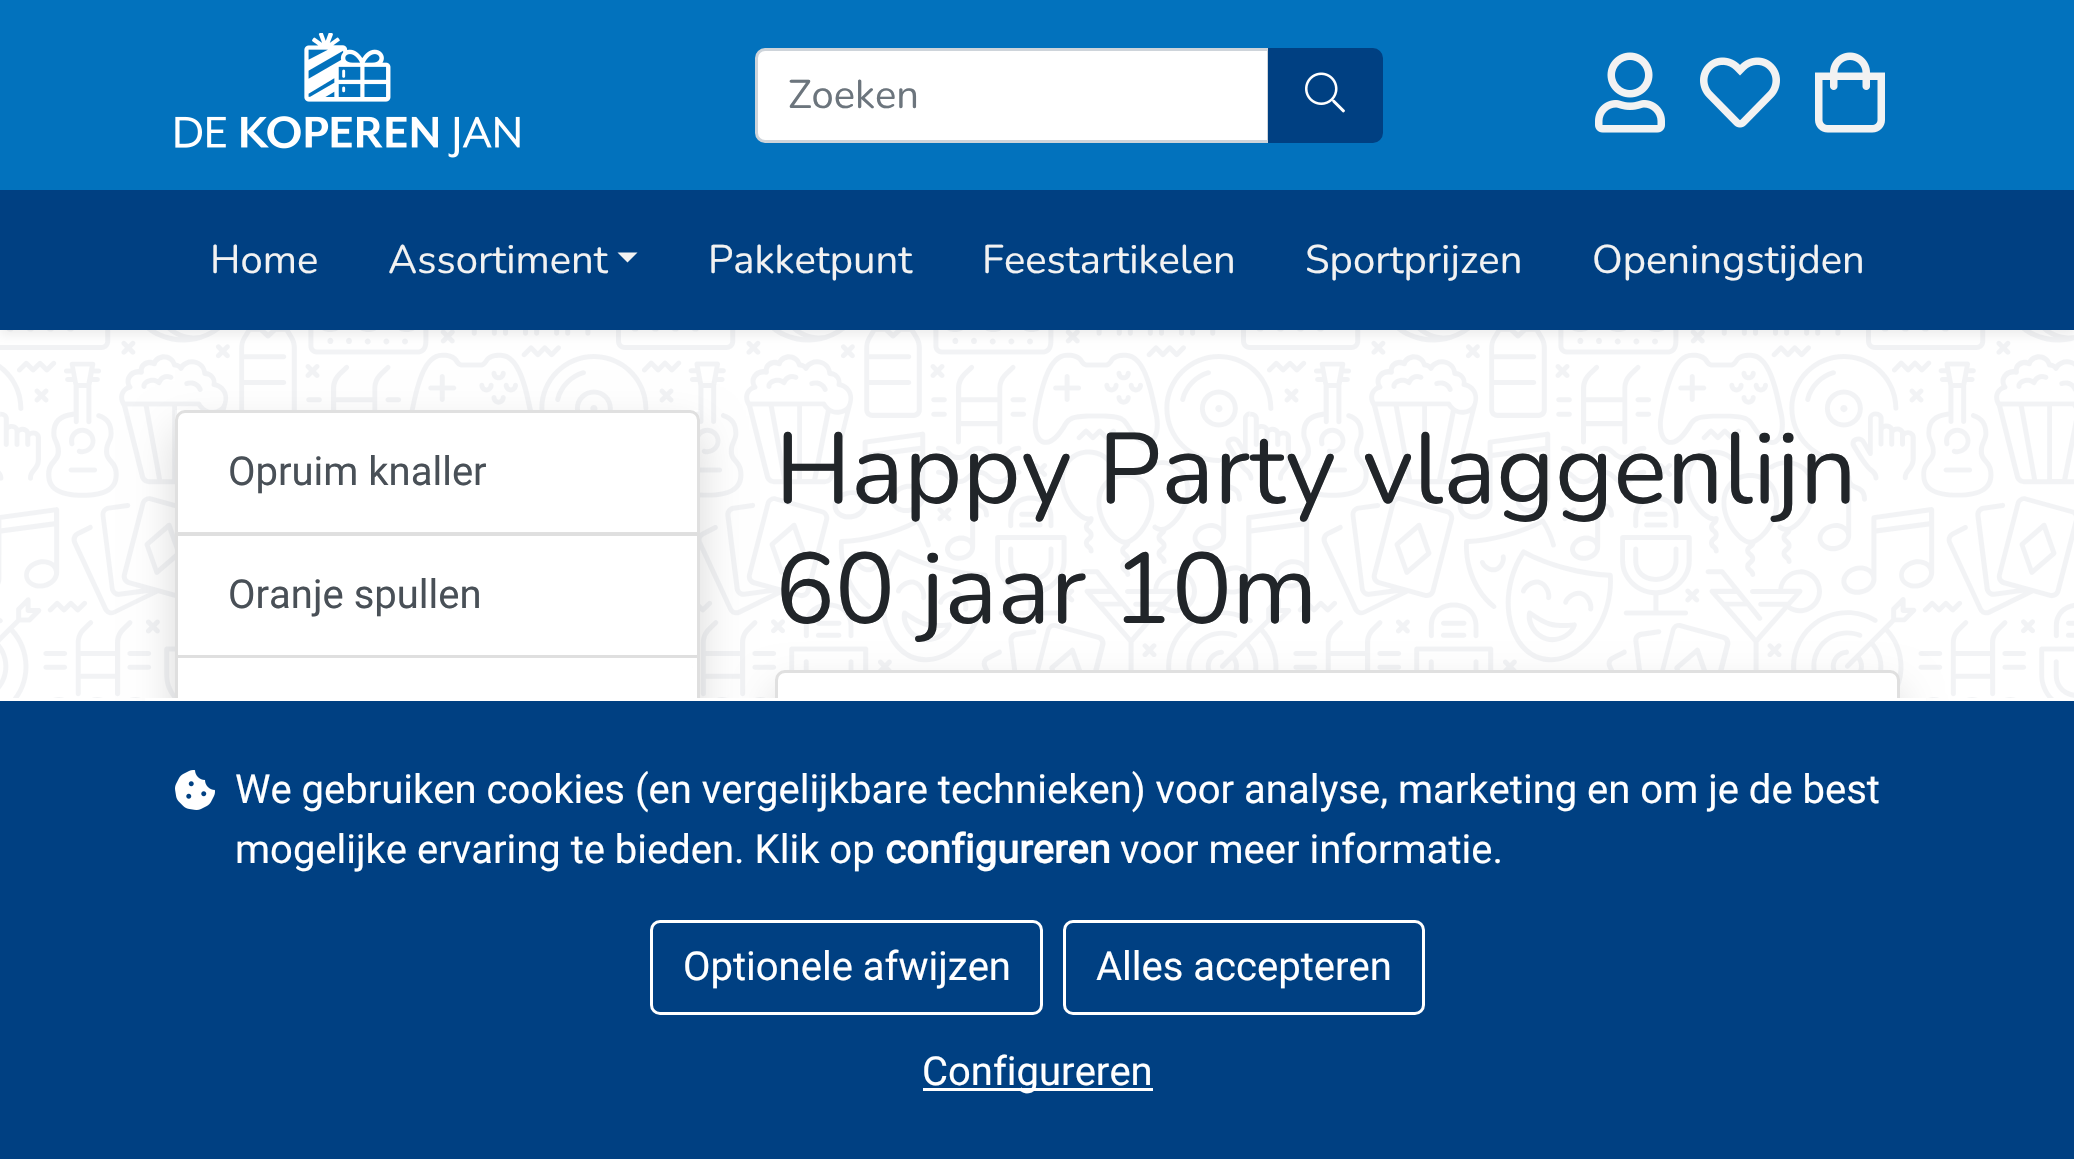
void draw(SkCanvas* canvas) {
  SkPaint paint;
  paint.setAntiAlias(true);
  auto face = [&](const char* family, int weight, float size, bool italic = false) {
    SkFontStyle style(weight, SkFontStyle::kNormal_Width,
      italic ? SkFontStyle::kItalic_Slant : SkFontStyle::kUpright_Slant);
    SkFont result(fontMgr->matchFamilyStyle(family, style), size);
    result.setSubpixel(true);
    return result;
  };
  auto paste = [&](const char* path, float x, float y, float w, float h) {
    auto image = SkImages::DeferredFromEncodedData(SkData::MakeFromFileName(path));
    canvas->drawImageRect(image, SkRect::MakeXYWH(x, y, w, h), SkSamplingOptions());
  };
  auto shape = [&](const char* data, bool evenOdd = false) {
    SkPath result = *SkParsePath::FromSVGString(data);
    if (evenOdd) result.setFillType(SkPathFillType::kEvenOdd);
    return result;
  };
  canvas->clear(0xffffffff);
  paste("img/6.png", 0, 330, 2074, 368);
  paint.setColor(0x12000000);
  paint.setMaskFilter(SkMaskFilter::MakeBlur(kNormal_SkBlurStyle, 5));
  canvas->drawRect(SkRect::MakeXYWH(0, 5, 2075, 330), paint);
  paint.setMaskFilter(nullptr);
  paint.setColor(0xff0272bd);
  canvas->drawRect(SkRect::MakeXYWH(0, 0, 2074, 190), paint);
  paste("img/1.png", 175, 33, 345, 125);
  paint.setColor(0xffffffff);
  canvas->drawPath(shape("M765 49.5H1268.5V141.5H765C760.5 141.5 756.5 137.5 756.5 133V58C756.5 53.5 760.5 49.5 765 49.5Z"), paint);
  paint.setStroke(true);
  paint.setStrokeWidth(3);
  paint.setColor(0xffced4da);
  canvas->drawPath(shape("M765 49.5H1268.5V141.5H765C760.5 141.5 756.5 137.5 756.5 133V58C756.5 53.5 760.5 49.5 765 49.5Z"), paint);
  paint.setStroke(false);
  paint.setColor(0xff004082);
  canvas->drawPath(shape("M1269.5 49.5H1373C1377.5 49.5 1381.5 53.5 1381.5 58V133C1381.5 137.5 1377.5 141.5 1373 141.5H1269.5Z"), paint);
  paint.setStroke(true);
  canvas->drawPath(shape("M1269.5 49.5H1373C1377.5 49.5 1381.5 53.5 1381.5 58V133C1381.5 137.5 1377.5 141.5 1373 141.5H1269.5Z"), paint);
  paste("img/2.png", 1305, 72, 40, 41);
  paste("img/3.png", 1595, 52, 70, 81);
  paste("img/4.png", 1700, 57, 80, 71);
  paste("img/5.png", 1815, 52, 70, 81);
  paint.setStroke(false);
  canvas->drawRect(SkRect::MakeXYWH(0, 190, 2074, 140), paint);
  paint.setColor(0xfff2f2f2);
  canvas->drawPath(shape("M617.5 252.5H637.5L627.5 262.5Z"), paint);
  canvas->save();
  canvas->clipPath(shape("M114 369H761V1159H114ZM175 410H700V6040H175Z", true), true);
  paint.setColor(0x26000000);
  paint.setMaskFilter(SkMaskFilter::MakeBlur(kNormal_SkBlurStyle, 20));
  canvas->drawRect(SkRect::MakeXYWH(175, 430, 525, 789), paint);
  paint.setMaskFilter(nullptr);
  canvas->restore();
  paint.setColor(0xffffffff);
  canvas->drawPath(shape("M185 410H690C695.5 410 700 414.5 700 420V535H175V420C175 414.5 179.5 410 185 410Z"), paint);
  paint.setStroke(true);
  paint.setColor(0x1f000000);
  canvas->drawPath(shape("M185 411.5H690C694.5 411.5 698.5 415.5 698.5 420V533.5H176.5V420C176.5 415.5 180.5 411.5 185 411.5Z"), paint);
  paint.setStroke(false);
  paint.setColor(0xffffffff);
  canvas->drawRect(SkRect::MakeXYWH(176.5f, 534.5f, 522, 122), paint);
  paint.setStroke(true);
  paint.setColor(0xffdfdfdf);
  canvas->drawRect(SkRect::MakeXYWH(176.5f, 534.5f, 522, 122), paint);
  paint.setStroke(false);
  paint.setColor(0xffffffff);
  canvas->drawRect(SkRect::MakeXYWH(178, 658, 514, 40), paint);
  paint.setStroke(true);
  paint.setColor(0xffdfdfdf);
  canvas->drawRect(SkRect::MakeXYWH(176.5f, 656.5f, 522, 122), paint);
  paint.setStroke(false);
  paint.setColor(0x26000000);
  paint.setMaskFilter(SkMaskFilter::MakeBlur(kNormal_SkBlurStyle, 20));
  canvas->drawRoundRect(SkRect::MakeXYWH(775, 690, 1125, 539), 10, 10, paint);
  paint.setMaskFilter(nullptr);
  paint.setColor(0xffffffff);
  canvas->drawRoundRect(SkRect::MakeXYWH(775, 670, 1125, 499), 10, 10, paint);
  paint.setStroke(true);
  paint.setColor(0x1f000000);
  canvas->drawRoundRect(SkRect::MakeXYWH(776.5f, 671.5f, 1122, 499), 8.5f, 8.5f, paint);
  paint.setStroke(false);
  paint.setColor(0xff004082);
  canvas->drawRect(SkRect::MakeXYWH(0, 701, 2074, 458), paint);
  paint.setColor(0xffffffff);
  canvas->drawRect(SkRect::MakeXYWH(145, 698, 1781, 3), paint);
  paste("img/7.png", 175, 770, 40, 40);
  paint.setStroke(true);
  canvas->drawRoundRect(SkRect::MakeXYWH(651.5f, 921.5f, 390, 92), 8.5f, 8.5f, paint);
  canvas->drawRoundRect(SkRect::MakeXYWH(1064.5f, 921.5f, 359, 92), 8.5f, 8.5f, paint);
  paint.setStroke(false);
  canvas->drawRect(SkRect::MakeXYWH(923, 1088, 230, 3), paint);
  auto f0 = face("Nunito", 200, 40);
  paint.setColor(0xff6c757d);
  canvas->drawString("Zoeken", 788, 108, f0, paint);
  paint.setColor(0xfff2f2f2);
  {
    const struct { const char* s; float x, y; } items[] = {
      {"Home", 210, 273},
      {"Assortiment", 388, 273},
      {"Pakketpunt", 708, 273},
      {"Feestartikelen", 982, 273},
      {"Sportprijzen", 1305, 273},
      {"Openingstijden", 1592, 273},
    };
    for (auto [s, x, y] : items) {
      canvas->drawString(s, x, y, f0, paint);
    }
  }
  auto f1 = face("Roboto", 400, 40);
  paint.setColor(0xff495057);
  canvas->drawString("Opruim knaller", 228, 485, f1, paint);
  canvas->drawString("Oranje spullen", 228, 608, f1, paint);
  auto f2 = face("Nunito", 200, 100);
  paint.setColor(0xff212529);
  canvas->drawString("Happy Party vlaggenlijn", 775, 503, f2, paint);
  canvas->drawString("60 jaar 10m", 775, 623, f2, paint);
  paint.setColor(0xffffffff);
  canvas->drawString("We gebruiken cookies (en vergelijkbare technieken) voor analyse, marketing en om je de best", 235, 803, f1, paint);
  canvas->drawString("mogelijke ervaring te bieden. Klik op", 235, 863, f1, paint);
  auto f3 = face("Roboto", 700, 40);
  canvas->drawString("configureren", 885, 863, f3, paint);
  {
    const struct { const char* s; float x, y; } items[] = {
      {"voor meer informatie.", 1120, 863},
      {"Optionele afwijzen", 683, 980},
      {"Alles accepteren", 1096, 980},
      {"Configureren", 922, 1085},
    };
    for (auto [s, x, y] : items) {
      canvas->drawString(s, x, y, f1, paint);
    }
  }
}
